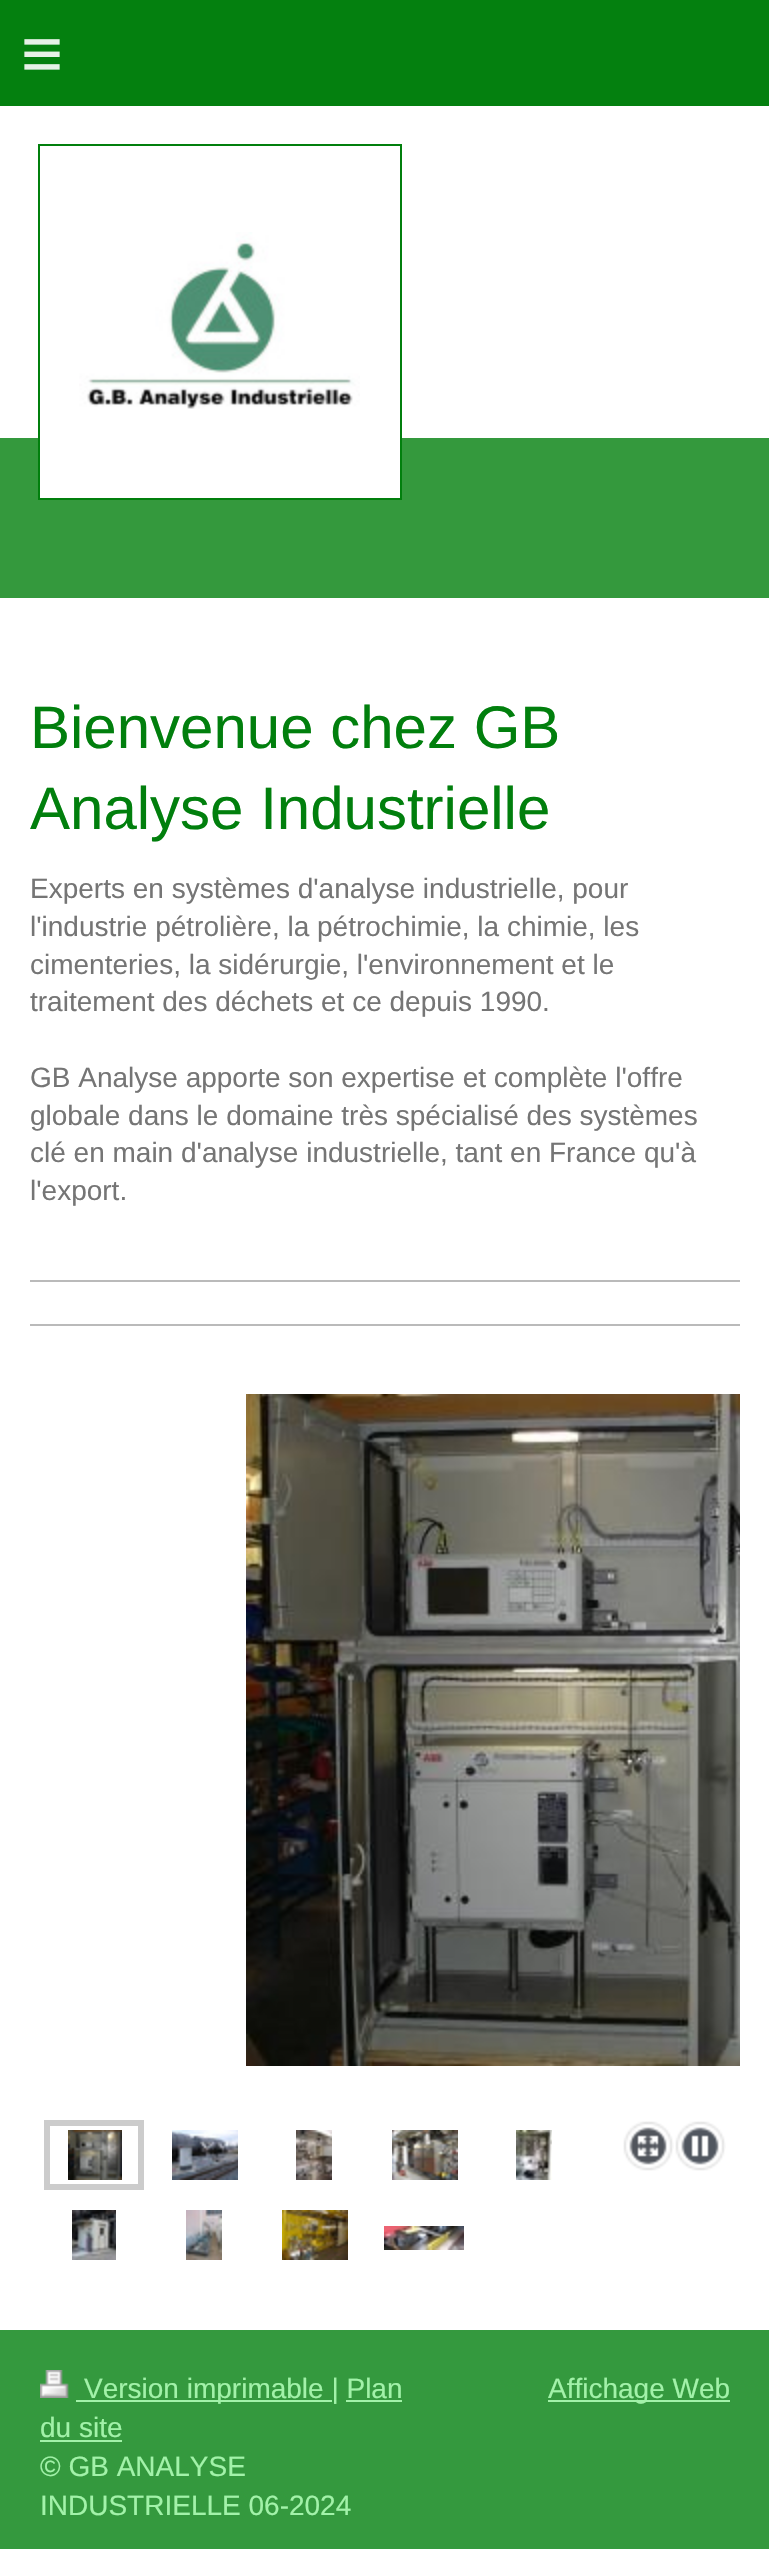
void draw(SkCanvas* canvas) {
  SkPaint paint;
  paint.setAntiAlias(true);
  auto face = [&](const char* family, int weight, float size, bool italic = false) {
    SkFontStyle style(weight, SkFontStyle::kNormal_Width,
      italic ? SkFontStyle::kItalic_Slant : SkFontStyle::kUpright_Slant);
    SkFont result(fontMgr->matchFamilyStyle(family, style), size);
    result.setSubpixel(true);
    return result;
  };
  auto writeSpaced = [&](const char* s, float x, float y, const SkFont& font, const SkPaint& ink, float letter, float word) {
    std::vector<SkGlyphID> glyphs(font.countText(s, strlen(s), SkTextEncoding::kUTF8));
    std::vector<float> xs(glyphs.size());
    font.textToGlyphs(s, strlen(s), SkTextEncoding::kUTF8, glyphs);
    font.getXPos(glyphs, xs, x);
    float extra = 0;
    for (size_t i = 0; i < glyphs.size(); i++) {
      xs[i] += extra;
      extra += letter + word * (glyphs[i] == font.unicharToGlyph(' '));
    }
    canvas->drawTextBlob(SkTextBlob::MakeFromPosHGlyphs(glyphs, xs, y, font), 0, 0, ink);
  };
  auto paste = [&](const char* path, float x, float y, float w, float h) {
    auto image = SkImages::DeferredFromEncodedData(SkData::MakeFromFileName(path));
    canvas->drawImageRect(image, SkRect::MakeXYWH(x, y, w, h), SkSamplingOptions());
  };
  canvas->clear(0xffffffff);
  paint.setColor(0xff04800f);
  canvas->drawRect(SkRect::MakeXYWH(0, 0, 769, 106), paint);
  paint.setColor(0xff34993d);
  canvas->drawRect(SkRect::MakeXYWH(0, 438, 769, 160), paint);
  paint.setStroke(true);
  paint.setStrokeWidth(2);
  paint.setColor(0xff017f0d);
  canvas->drawRect(SkRect::MakeXYWH(39, 145, 362, 354), paint);
  paint.setStroke(false);
  paint.setColor(0xffffffff);
  canvas->drawRect(SkRect::MakeXYWH(40, 438, 360, 60), paint);
  paste("img/1.png", 79, 232, 281, 177);
  paint.setColor(0xffbababa);
  canvas->drawRect(SkRect::MakeXYWH(30, 1280, 710, 2), paint);
  canvas->drawRect(SkRect::MakeXYWH(30, 1324, 710, 2), paint);
  paste("img/2.png", 246, 1394, 494, 672);
  paint.setStroke(true);
  paint.setStrokeWidth(6);
  paint.setColor(0xffcccccc);
  canvas->drawRect(SkRect::MakeXYWH(47, 2123, 94, 64), paint);
  paste("img/3.png", 68, 2130, 54, 50);
  paste("img/4.png", 172, 2130, 66, 50);
  paste("img/5.png", 296, 2130, 36, 50);
  paste("img/6.png", 392, 2130, 66, 50);
  paste("img/7.png", 516, 2130, 36, 50);
  paste("img/8.png", 623, 2121, 51, 50);
  paste("img/9.png", 675, 2121, 51, 50);
  paste("img/10.png", 72, 2210, 44, 50);
  paste("img/11.png", 186, 2210, 36, 50);
  paste("img/12.png", 282, 2210, 66, 50);
  paste("img/13.png", 384, 2226, 80, 24);
  paint.setStroke(false);
  paint.setColor(0xff34993e);
  canvas->drawRect(SkRect::MakeXYWH(0, 2330, 769, 219), paint);
  paste("img/14.png", 40, 2370, 29, 28);
  {
    const struct { float x, y, w, h; SkColor color; } items[] = {
      {76, 2400, 256, 2, 0xffa2f2a9},
      {346, 2400, 56, 2, 0xffa2f2a9},
      {40, 2440, 82, 2, 0xffa2f2a9},
      {548, 2400, 182, 2, 0xffa2f2a9},
    };
    for (auto [x, y, w, h, color] : items) {
      paint.setColor(color);
      canvas->drawRect(SkRect::MakeXYWH(x, y, w, h), paint);
    }
  }
  auto f0 = face("Liberation Sans", 400, 72);
  paint.setColor(0xffe6f2e7);
  writeSpaced("≡", 21, 78, f0, paint, 21, 0);
  auto f1 = face("Liberation Sans", 400, 60);
  paint.setColor(0xff017f0d);
  canvas->drawString("Bienvenue chez GB", 30, 748, f1, paint);
  canvas->drawString("Analyse Industrielle", 30, 829, f1, paint);
  auto f2 = face("Liberation Sans", 400, 28);
  paint.setColor(0xff757575);
  {
    const struct { const char* s; float x, y; } items[] = {
      {"Experts en systèmes d'analyse industrielle, pour", 30, 898},
      {"l'industrie pétrolière, la pétrochimie, la chimie, les", 30, 936},
      {"cimenteries, la sidérurgie, l'environnement et le", 30, 974},
      {"traitement des déchets et ce depuis 1990.", 30, 1011},
      {"GB Analyse apporte son expertise et complète l'offre", 30, 1087},
      {"globale dans le domaine très spécialisé des systèmes", 30, 1125},
      {"clé en main d'analyse industrielle, tant en France qu'à", 30, 1162},
      {"l'export.", 30, 1200},
    };
    for (auto [s, x, y] : items) {
      canvas->drawString(s, x, y, f2, paint);
    }
  }
  paint.setColor(0xffa2f2a9);
  {
    const struct { const char* s; float x, y; } items[] = {
      {"Version imprimable | Plan", 84, 2398},
      {"du site", 40, 2437},
      {"© GB ANALYSE", 40, 2476},
      {"INDUSTRIELLE 06-2024", 40, 2515},
      {"Affichage Web", 548, 2398},
    };
    for (auto [s, x, y] : items) {
      canvas->drawString(s, x, y, f2, paint);
    }
  }
}
